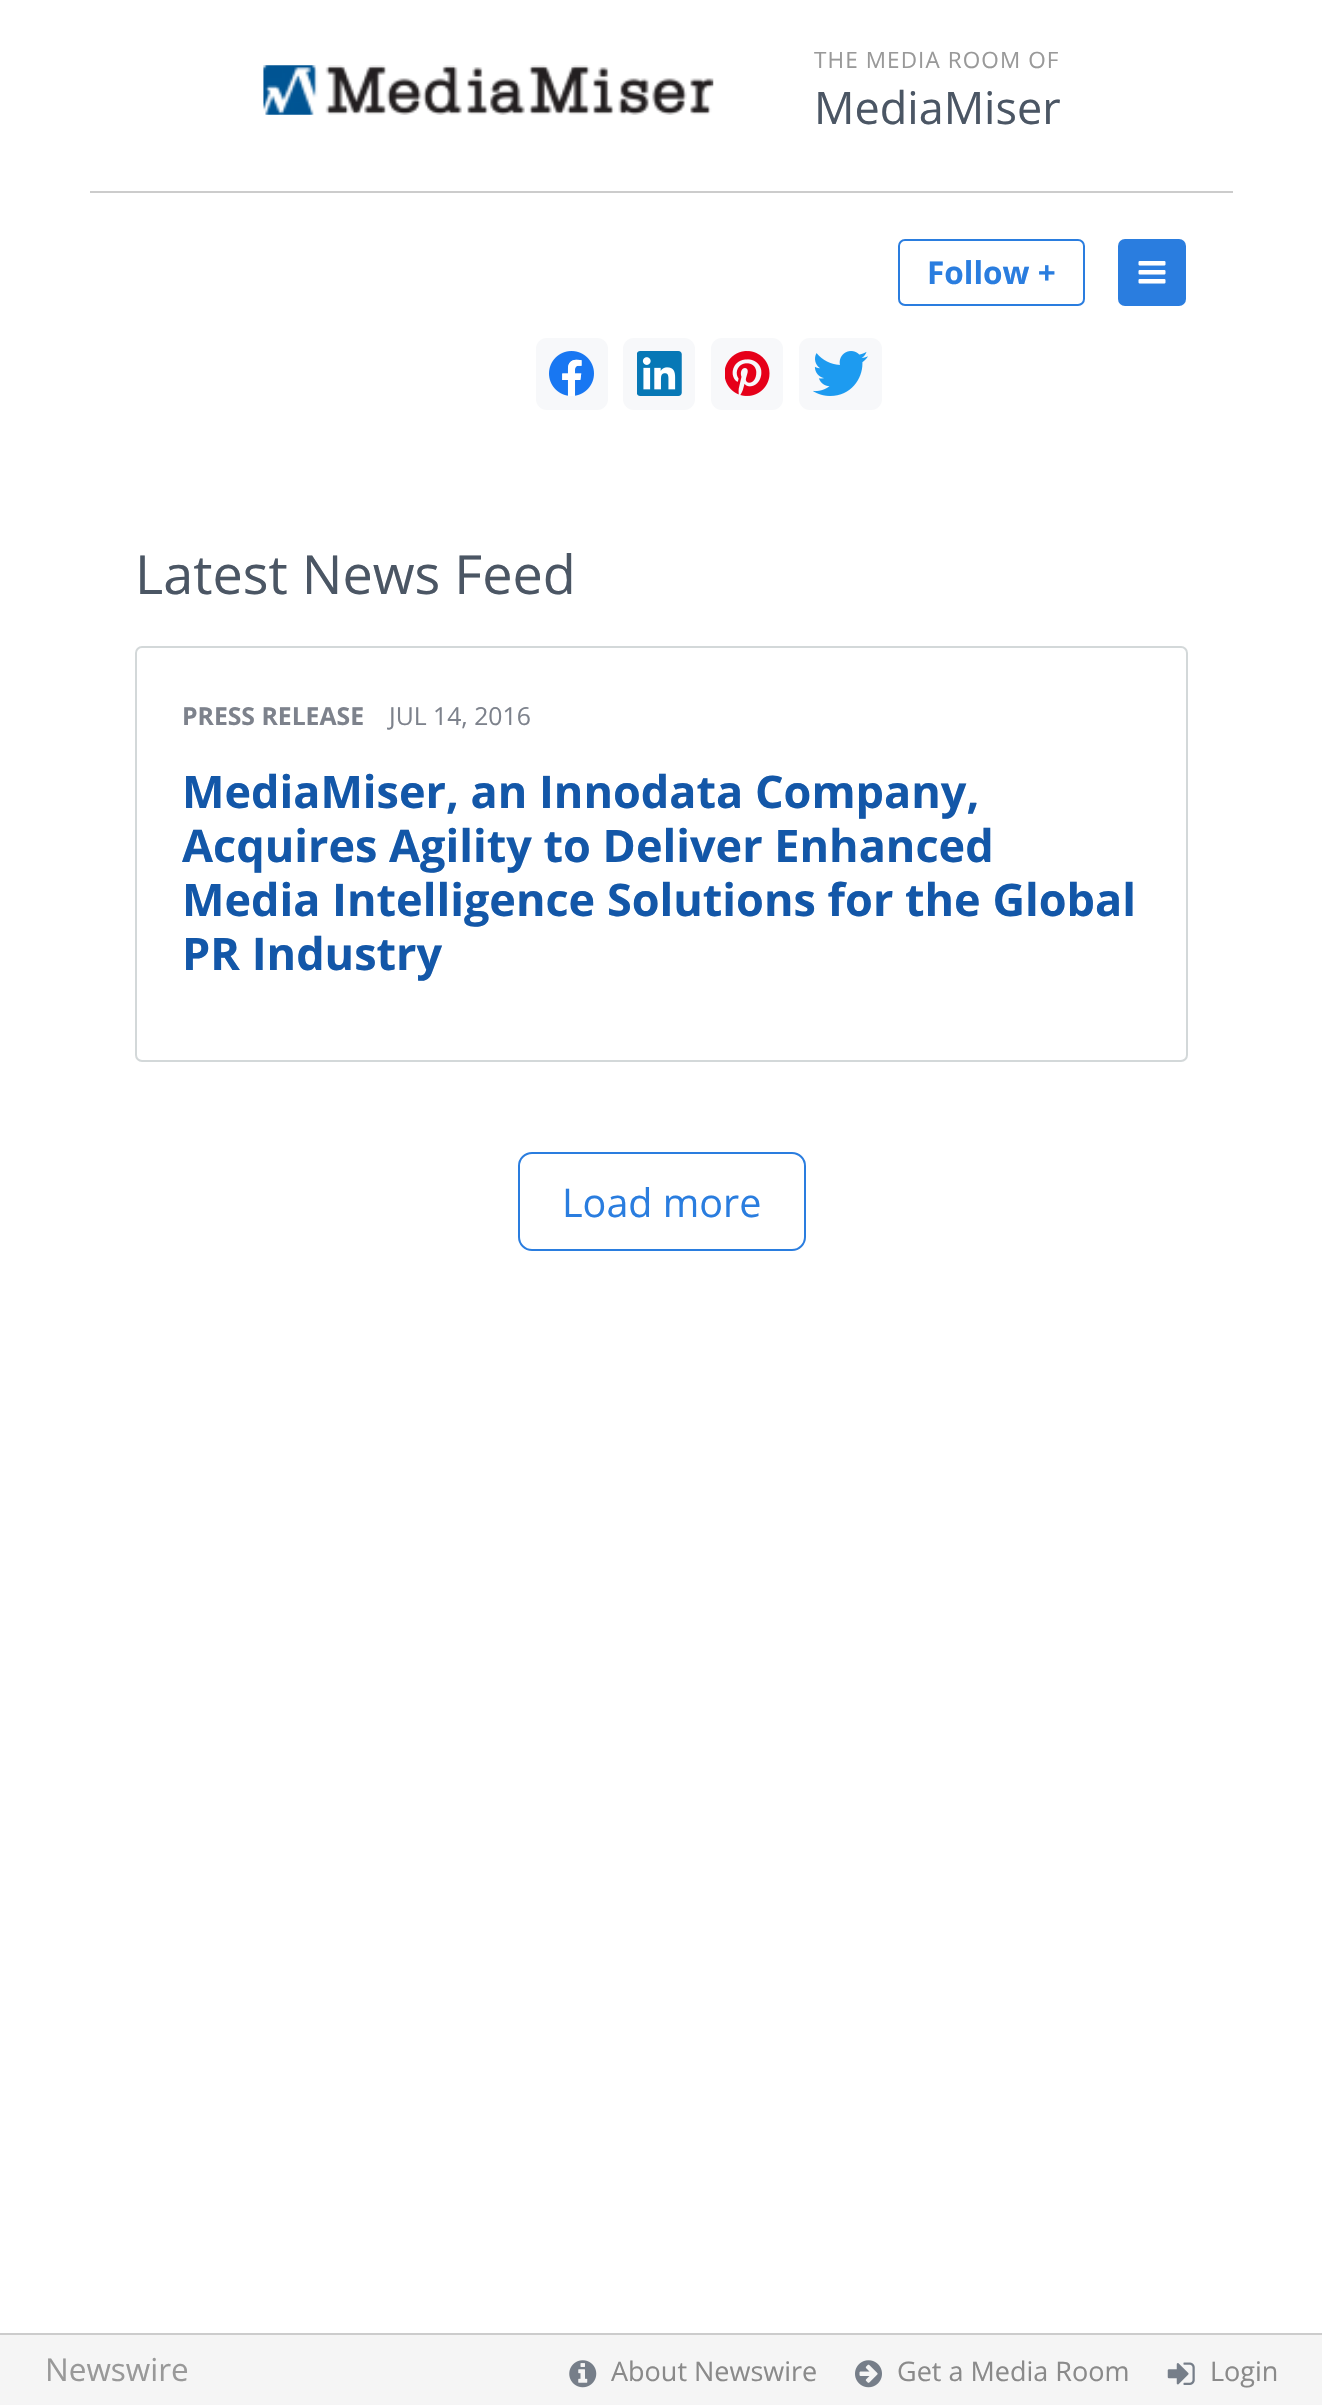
void draw(SkCanvas* canvas) {
  SkPaint paint;
  paint.setAntiAlias(true);
  auto face = [&](const char* family, int weight, float size, bool italic = false) {
    SkFontStyle style(weight, SkFontStyle::kNormal_Width,
      italic ? SkFontStyle::kItalic_Slant : SkFontStyle::kUpright_Slant);
    SkFont result(fontMgr->matchFamilyStyle(family, style), size);
    result.setSubpixel(true);
    return result;
  };
  auto writeSpaced = [&](const char* s, float x, float y, const SkFont& font, const SkPaint& ink, float letter, float word) {
    std::vector<SkGlyphID> glyphs(font.countText(s, strlen(s), SkTextEncoding::kUTF8));
    std::vector<float> xs(glyphs.size());
    font.textToGlyphs(s, strlen(s), SkTextEncoding::kUTF8, glyphs);
    font.getXPos(glyphs, xs, x);
    float extra = 0;
    for (size_t i = 0; i < glyphs.size(); i++) {
      xs[i] += extra;
      extra += letter + word * (glyphs[i] == font.unicharToGlyph(' '));
    }
    canvas->drawTextBlob(SkTextBlob::MakeFromPosHGlyphs(glyphs, xs, y, font), 0, 0, ink);
  };
  auto paste = [&](const char* path, float x, float y, float w, float h) {
    auto image = SkImages::DeferredFromEncodedData(SkData::MakeFromFileName(path));
    canvas->drawImageRect(image, SkRect::MakeXYWH(x, y, w, h), SkSamplingOptions());
  };
  canvas->clear(0xffffffff);
  paint.setColor(0xffcccccc);
  canvas->drawRect(SkRect::MakeXYWH(90, 191, 1143, 2), paint);
  paste("img/1.png", 263, 65, 451, 50);
  paint.setStroke(true);
  paint.setStrokeWidth(2);
  paint.setColor(0xff2a7ddf);
  canvas->drawRoundRect(SkRect::MakeXYWH(899, 240, 185, 65), 6, 6, paint);
  paint.setStroke(false);
  canvas->drawRoundRect(SkRect::MakeXYWH(1118, 239, 68, 67), 7, 7, paint);
  paste("img/2.png", 1138, 261, 28, 23);
  paint.setColor(0xfff7f8fa);
  canvas->drawRoundRect(SkRect::MakeXYWH(536, 338, 72, 72), 11, 11, paint);
  paste("img/3.png", 549, 351, 45, 45);
  canvas->drawRoundRect(SkRect::MakeXYWH(623, 338, 72, 72), 11, 11, paint);
  paste("img/4.png", 637, 351, 45, 45);
  canvas->drawRoundRect(SkRect::MakeXYWH(711, 338, 72, 72), 11, 11, paint);
  paste("img/5.png", 725, 351, 45, 45);
  canvas->drawRoundRect(SkRect::MakeXYWH(799, 338, 83, 72), 11, 11, paint);
  paste("img/6.png", 813, 351, 55, 45);
  paint.setStroke(true);
  paint.setColor(0xffd3d8d9);
  canvas->drawRoundRect(SkRect::MakeXYWH(136, 647, 1051, 414), 6, 6, paint);
  paint.setColor(0xff2a7ddf);
  canvas->drawRoundRect(SkRect::MakeXYWH(519, 1153, 286, 97), 13, 13, paint);
  paint.setStroke(false);
  paint.setColor(0xfff5f5f5);
  canvas->drawRect(SkRect::MakeXYWH(0, 2335, 1322, 70), paint);
  paint.setColor(0xffcccccc);
  canvas->drawRect(SkRect::MakeXYWH(0, 2333, 1322, 2), paint);
  paste("img/7.png", 569, 2360, 28, 28);
  paste("img/8.png", 855, 2360, 27, 28);
  paste("img/9.png", 1167, 2362, 28, 23);
  auto f0 = face("Open Sans", 400, 22.5f);
  paint.setColor(0xff999999);
  writeSpaced("THE MEDIA ROOM OF", 814, 68, f0, paint, 1.1f, 0);
  auto f1 = face("Open Sans", 400, 45);
  paint.setColor(0xff4b5664);
  canvas->drawString("MediaMiser", 814, 124, f1, paint);
  auto f2 = face("Open Sans", 700, 31.5f);
  paint.setColor(0xff2a7ddf);
  canvas->drawString("Follow +", 927, 284, f2, paint);
  auto f3 = face("Open Sans", 400, 54);
  paint.setColor(0xff4b5664);
  canvas->drawString("Latest News Feed", 135, 594, f3, paint);
  auto f4 = face("Open Sans", 700, 24.75f);
  paint.setColor(0xff7d828c);
  canvas->drawString("PRESS RELEASE", 182, 725, f4, paint);
  auto f5 = face("Open Sans", 400, 24.75f);
  canvas->drawString("JUL 14, 2016", 389, 725, f5, paint);
  auto f6 = face("Open Sans", 700, 45);
  paint.setColor(0xff1357a8);
  {
    const struct { const char* s; float x, y; } items[] = {
      {"MediaMiser, an Innodata Company,", 182, 808},
      {"Acquires Agility to Deliver Enhanced", 182, 862},
      {"Media Intelligence Solutions for the Global", 182, 916},
      {"PR Industry", 182, 970},
    };
    for (auto [s, x, y] : items) {
      canvas->drawString(s, x, y, f6, paint);
    }
  }
  auto f7 = face("Open Sans", 400, 39.5f);
  paint.setColor(0xff2a7ddf);
  canvas->drawString("Load more", 562, 1217, f7, paint);
  auto f8 = face("Open Sans", 400, 31.5f);
  paint.setColor(0xff999999);
  canvas->drawString("Newswire", 45, 2381, f8, paint);
  auto f9 = face("Open Sans", 400, 27);
  paint.setColor(0xff8a8a8a);
  {
    const struct { const char* s; float x, y; } items[] = {
      {"About Newswire", 611, 2381},
      {"Get a Media Room", 897, 2381},
      {"Login", 1210, 2381},
    };
    for (auto [s, x, y] : items) {
      canvas->drawString(s, x, y, f9, paint);
    }
  }
}
